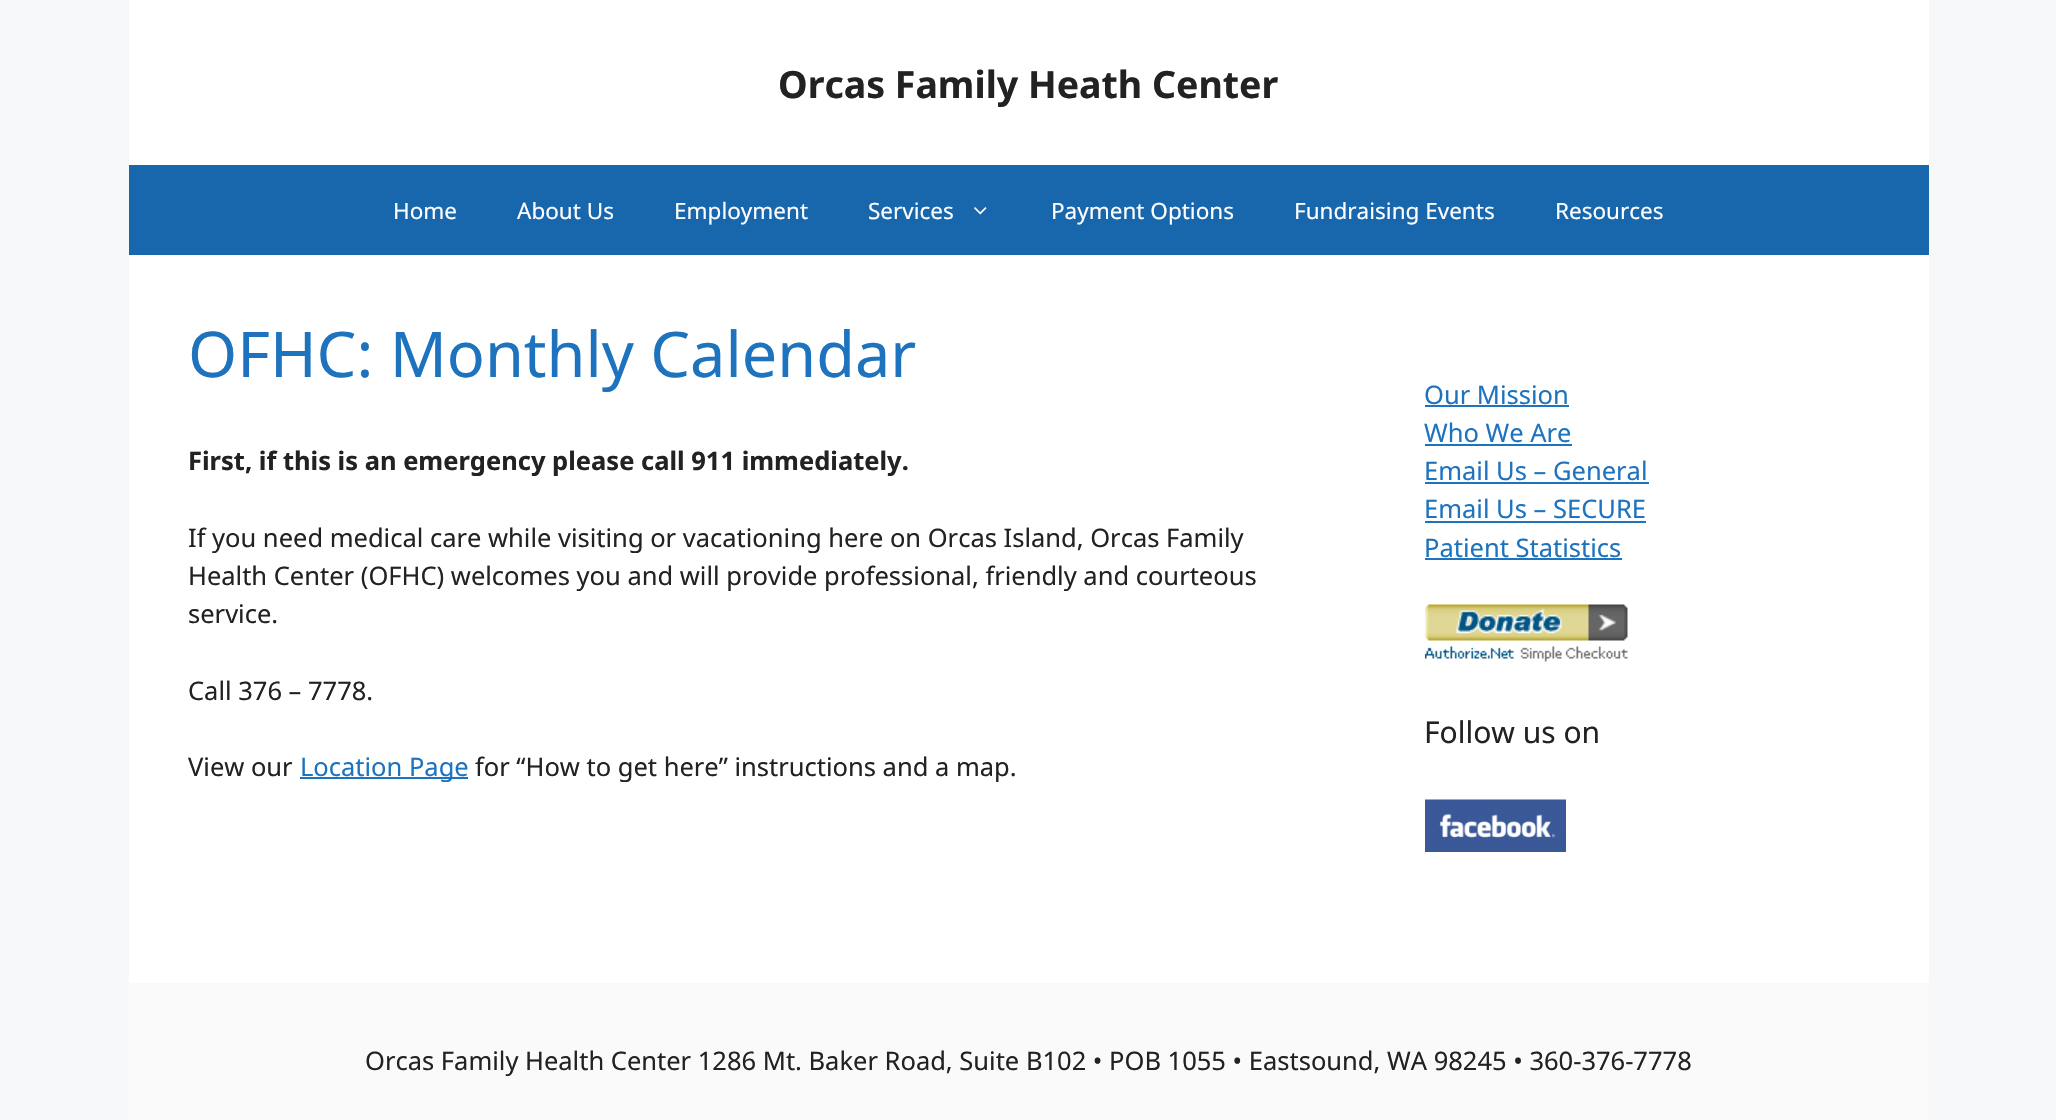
void draw(SkCanvas* canvas) {
  SkPaint paint;
  paint.setAntiAlias(true);
  auto face = [&](const char* family, int weight, float size, bool italic = false) {
    SkFontStyle style(weight, SkFontStyle::kNormal_Width,
      italic ? SkFontStyle::kItalic_Slant : SkFontStyle::kUpright_Slant);
    SkFont result(fontMgr->matchFamilyStyle(family, style), size);
    result.setSubpixel(true);
    return result;
  };
  auto paste = [&](const char* path, float x, float y, float w, float h) {
    auto image = SkImages::DeferredFromEncodedData(SkData::MakeFromFileName(path));
    canvas->drawImageRect(image, SkRect::MakeXYWH(x, y, w, h), SkSamplingOptions());
  };
  canvas->clear(0xfff7f8f9);
  paint.setColor(0xffffffff);
  canvas->drawRect(SkRect::MakeXYWH(129, 0, 1800, 165), paint);
  paint.setColor(0xff1867ac);
  canvas->drawRect(SkRect::MakeXYWH(129, 165, 1800, 90), paint);
  paste("img/1.png", 974, 207, 13, 8);
  {
    const struct { float x, y, w, h; SkColor color; } items[] = {
      {129, 255, 1800, 728, 0xffffffff},
      {300, 777, 168, 2, 0xff1e73be},
      {1425, 405, 144, 2, 0xff1e73be},
      {1425, 444, 147, 2, 0xff1e73be},
      {1425, 482, 224, 2, 0xff1e73be},
      {1425, 521, 221, 2, 0xff1e73be},
      {1425, 558, 197, 2, 0xff1e73be},
    };
    for (auto [x, y, w, h, color] : items) {
      paint.setColor(color);
      canvas->drawRect(SkRect::MakeXYWH(x, y, w, h), paint);
    }
  }
  paste("img/2.png", 1425, 604, 203, 58);
  paste("img/3.png", 1425, 799, 141, 53);
  paint.setColor(0xfffafafa);
  canvas->drawRect(SkRect::MakeXYWH(129, 983, 1800, 137), paint);
  auto f0 = face("Noto Sans", 700, 37.5f);
  paint.setColor(0xff222222);
  canvas->drawString("Orcas Family Heath Center", 778, 98, f0, paint);
  auto f1 = face("Noto Sans", 400, 22.5f);
  paint.setColor(0xffffffff);
  {
    const struct { const char* s; float x, y; } items[] = {
      {"Home", 393, 219},
      {"About Us", 517, 219},
      {"Employment", 674, 219},
      {"Services", 868, 219},
      {"Payment Options", 1051, 219},
      {"Fundraising Events", 1294, 219},
      {"Resources", 1555, 219},
    };
    for (auto [s, x, y] : items) {
      canvas->drawString(s, x, y, f1, paint);
    }
  }
  auto f2 = face("Noto Sans", 400, 63);
  paint.setColor(0xff1e73be);
  canvas->drawString("OFHC: Monthly Calendar", 188, 377, f2, paint);
  auto f3 = face("Noto Sans", 700, 25.5f);
  paint.setColor(0xff222222);
  canvas->drawString("First, if this is an emergency please call 911 immediately.", 188, 470, f3, paint);
  auto f4 = face("Noto Sans", 400, 25.5f);
  {
    const struct { const char* s; float x, y; } items[] = {
      {"If you need medical care while visiting or vacationing here on Orcas Island, Orcas Family", 188, 547},
      {"Health Center (OFHC) welcomes you and will provide professional, friendly and courteous", 188, 585},
      {"service.", 188, 623},
      {"Call 376 – 7778.", 188, 700},
      {"View our", 188, 776},
    };
    for (auto [s, x, y] : items) {
      canvas->drawString(s, x, y, f4, paint);
    }
  }
  paint.setColor(0xff1e73be);
  canvas->drawString("Location Page", 300, 776, f4, paint);
  paint.setColor(0xff222222);
  canvas->drawString("for “How to get here” instructions and a map.", 475, 776, f4, paint);
  paint.setColor(0xff1e73be);
  {
    const struct { const char* s; float x, y; } items[] = {
      {"Our Mission", 1424, 404},
      {"Who We Are", 1424, 442},
      {"Email Us – General", 1424, 480},
      {"Email Us – SECURE", 1424, 518},
      {"Patient Statistics", 1424, 557},
    };
    for (auto [s, x, y] : items) {
      canvas->drawString(s, x, y, f4, paint);
    }
  }
  auto f5 = face("Noto Sans", 400, 30);
  paint.setColor(0xff222222);
  canvas->drawString("Follow us on", 1424, 743, f5, paint);
  canvas->drawString("Orcas Family Health Center 1286 Mt. Baker Road, Suite B102 • POB 1055 • Eastsound, WA 98245 • 360-376-7778", 365, 1070, f4, paint);
}
